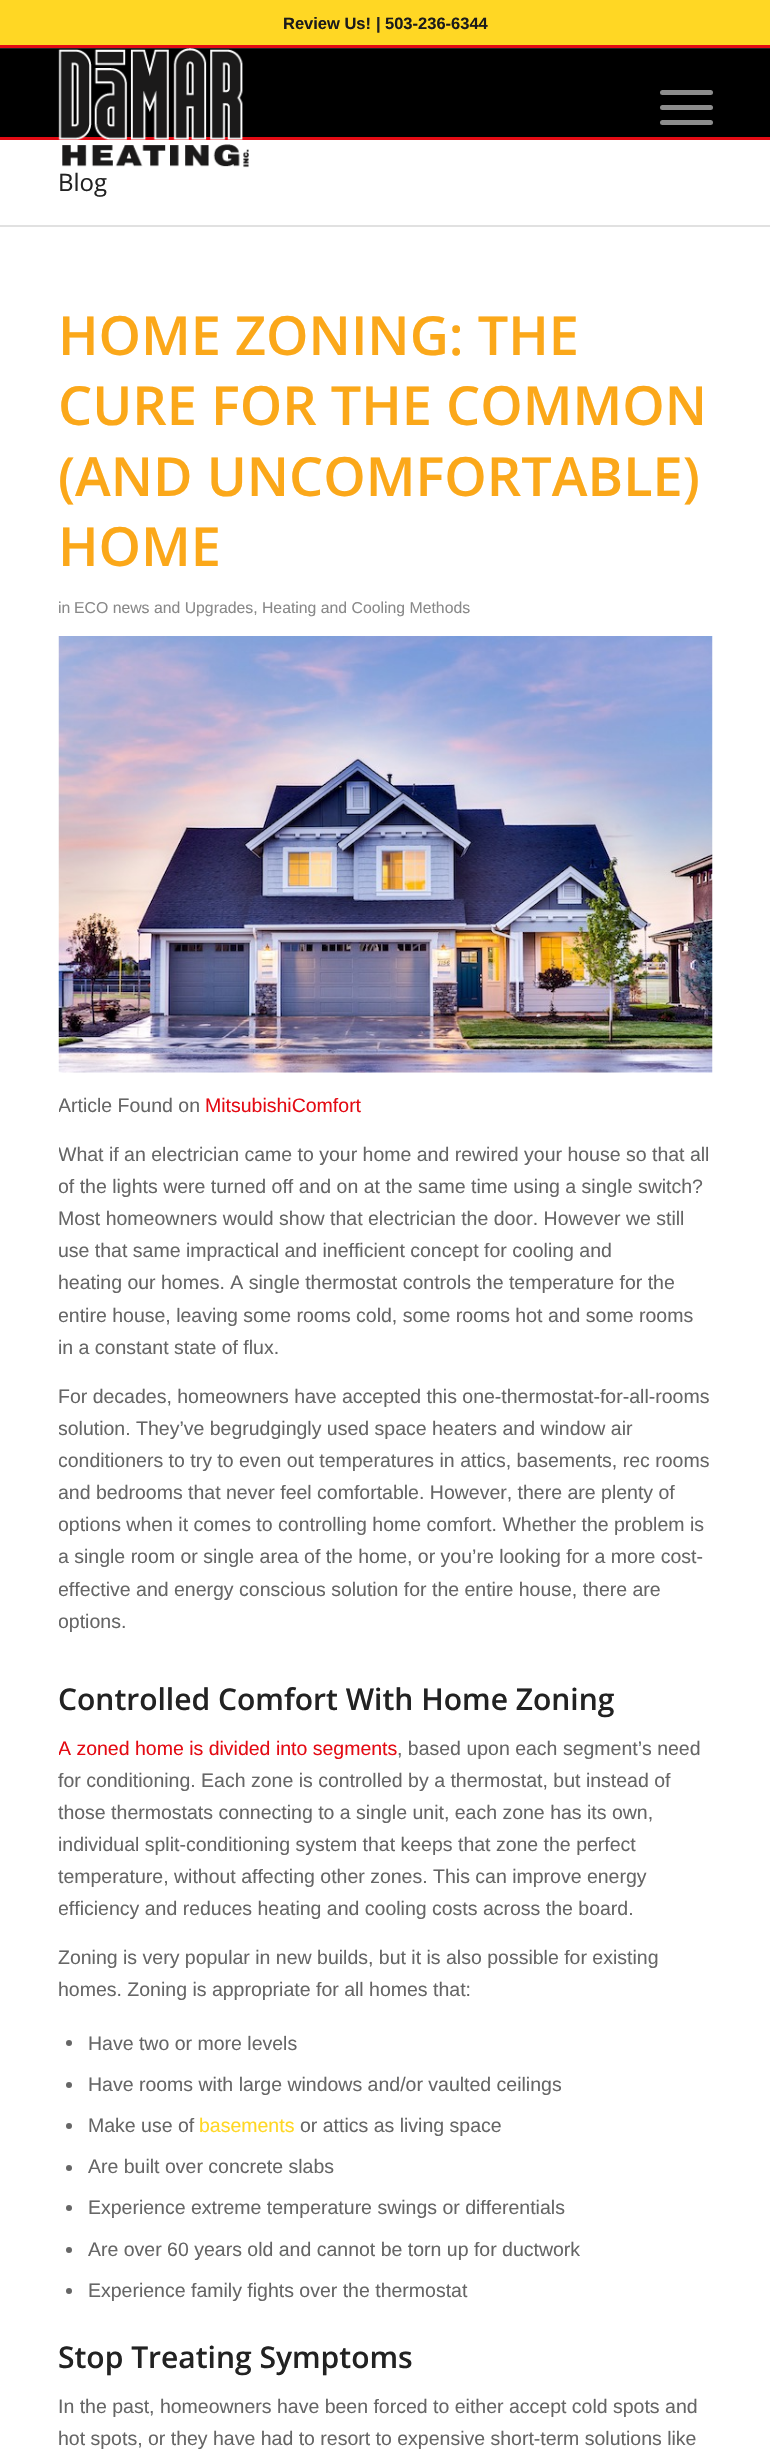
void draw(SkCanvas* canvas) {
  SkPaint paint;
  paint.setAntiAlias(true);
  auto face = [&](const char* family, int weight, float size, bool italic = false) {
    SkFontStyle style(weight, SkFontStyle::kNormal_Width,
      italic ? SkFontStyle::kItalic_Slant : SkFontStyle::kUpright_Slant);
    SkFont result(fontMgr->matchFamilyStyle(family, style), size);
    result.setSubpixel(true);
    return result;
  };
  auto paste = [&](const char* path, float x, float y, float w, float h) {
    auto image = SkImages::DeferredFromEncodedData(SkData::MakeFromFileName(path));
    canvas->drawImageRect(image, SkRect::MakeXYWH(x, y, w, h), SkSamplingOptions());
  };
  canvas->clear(0xffffffff);
  {
    const struct { float x, y, w, h; SkColor color; } items[] = {
      {0, 0, 770, 45, 0xffffd724},
      {0, 45, 770, 3, 0xffe40b14},
      {0, 49, 770, 88, 0xff000000},
      {0, 48, 770, 1, 0xff222222},
      {0, 137, 770, 3, 0xffe40b14},
    };
    for (auto [x, y, w, h, color] : items) {
      paint.setColor(color);
      canvas->drawRect(SkRect::MakeXYWH(x, y, w, h), paint);
    }
  }
  paste("img/1.png", 58, 48, 191, 120);
  paint.setColor(0xff8d8d8d);
  canvas->drawRoundRect(SkRect::MakeXYWH(660, 105, 53, 5), 2.5f, 2.5f, paint);
  canvas->drawRoundRect(SkRect::MakeXYWH(660, 90, 53, 5), 2.5f, 2.5f, paint);
  canvas->drawRoundRect(SkRect::MakeXYWH(660, 120, 53, 5), 2.5f, 2.5f, paint);
  paint.setColor(0xffe1e1e1);
  canvas->drawRect(SkRect::MakeXYWH(0, 225, 770, 2), paint);
  paste("img/2.png", 58, 636, 655, 437);
  paint.setColor(0xff666666);
  canvas->drawCircle(69, 2043, 3, paint);
  canvas->drawCircle(69, 2085, 3, paint);
  canvas->drawCircle(69, 2126, 3, paint);
  canvas->drawCircle(69, 2168, 3, paint);
  canvas->drawCircle(69, 2208, 3, paint);
  canvas->drawCircle(69, 2250, 3, paint);
  canvas->drawCircle(69, 2291, 3, paint);
  auto f0 = face("Liberation Sans", 700, 16.5f);
  paint.setColor(0xff1b1b1b);
  canvas->drawString("Review Us!", 283, 29, f0, paint);
  paint.setColor(0xff222222);
  canvas->drawString("|", 376, 29, f0, paint);
  paint.setColor(0xff1b1b1b);
  canvas->drawString("503-236-6344", 385, 29, f0, paint);
  auto f1 = face("Open Sans", 400, 24);
  paint.setColor(0xff222222);
  canvas->drawString("Blog", 58, 191, f1, paint);
  auto f2 = face("Open Sans", 600, 54);
  paint.setColor(0xfffba81a);
  {
    const struct { const char* s; float x, y; } items[] = {
      {"HOME ZONING: THE", 58, 355},
      {"CURE FOR THE COMMON", 58, 425},
      {"(AND UNCOMFORTABLE)", 58, 496},
      {"HOME", 58, 566},
    };
    for (auto [s, x, y] : items) {
      canvas->drawString(s, x, y, f2, paint);
    }
  }
  canvas->save();
  canvas->clipRect(SkRect::MakeXYWH(59, 302, 654, 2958));
  auto f3 = face("Liberation Sans", 400, 15.8f);
  paint.setColor(0xff898989);
  canvas->drawString("in", 58, 613, f3, paint);
  canvas->restore();
  canvas->drawString("ECO news and Upgrades, Heating and Cooling Methods", 74, 613, f3, paint);
  canvas->save();
  canvas->clipRect(SkRect::MakeXYWH(59, 302, 654, 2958));
  auto f4 = face("Liberation Sans", 400, 19.5f);
  paint.setColor(0xff666666);
  canvas->drawString("Article Found on", 58, 1112, f4, paint);
  canvas->restore();
  paint.setColor(0xffe40b14);
  canvas->drawString("MitsubishiComfort", 205, 1112, f4, paint);
  canvas->save();
  canvas->clipRect(SkRect::MakeXYWH(59, 302, 654, 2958));
  paint.setColor(0xff666666);
  canvas->drawString("What if an electrician came to your home and rewired your house so that all", 58, 1161, f4, paint);
  canvas->drawString("of the lights were turned off and on at the same time using a single switch?", 58, 1193, f4, paint);
  canvas->restore();
  {
    const struct { const char* s; float x, y; } items[] = {
      {"Most homeowners would show that electrician the door. However we still", 58, 1225},
      {"use that same impractical and inefficient concept for cooling and", 58, 1257},
      {"heating our homes. A single thermostat controls the temperature for the", 58, 1289},
    };
    for (auto [s, x, y] : items) {
      canvas->drawString(s, x, y, f4, paint);
    }
  }
  canvas->save();
  canvas->clipRect(SkRect::MakeXYWH(59, 302, 654, 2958));
  canvas->drawString("entire house, leaving some rooms cold, some rooms hot and some rooms", 58, 1322, f4, paint);
  canvas->restore();
  canvas->drawString("in a constant state of flux.", 58, 1354, f4, paint);
  canvas->drawString("For decades, homeowners have accepted this one-thermostat-for-all-rooms", 58, 1403, f4, paint);
  canvas->save();
  canvas->clipRect(SkRect::MakeXYWH(59, 302, 654, 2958));
  {
    const struct { const char* s; float x, y; } items[] = {
      {"solution. They’ve begrudgingly used space heaters and window air", 58, 1435},
      {"conditioners to try to even out temperatures in attics, basements, rec rooms", 58, 1467},
      {"and bedrooms that never feel comfortable. However, there are plenty of", 58, 1499},
      {"options when it comes to controlling home comfort. Whether the problem is", 58, 1531},
      {"a single room or single area of the home, or you’re looking for a more cost-", 58, 1563},
      {"effective and energy conscious solution for the entire house, there are", 58, 1596},
      {"options.", 58, 1628},
    };
    for (auto [s, x, y] : items) {
      canvas->drawString(s, x, y, f4, paint);
    }
  }
  canvas->restore();
  auto f5 = face("Open Sans", 600, 30);
  paint.setColor(0xff222222);
  canvas->drawString("Controlled Comfort With Home Zoning", 58, 1710, f5, paint);
  canvas->save();
  canvas->clipRect(SkRect::MakeXYWH(59, 302, 654, 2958));
  paint.setColor(0xffe40b14);
  canvas->drawString("A zoned home is divided into segments", 58, 1755, f4, paint);
  canvas->restore();
  paint.setColor(0xff666666);
  {
    const struct { const char* s; float x, y; } items[] = {
      {", based upon each segment’s need", 397, 1755},
      {"for conditioning. Each zone is controlled by a thermostat, but instead of", 58, 1787},
      {"those thermostats connecting to a single unit, each zone has its own,", 58, 1819},
      {"individual split-conditioning system that keeps that zone the perfect", 58, 1851},
      {"temperature, without affecting other zones. This can improve energy", 58, 1883},
    };
    for (auto [s, x, y] : items) {
      canvas->drawString(s, x, y, f4, paint);
    }
  }
  canvas->save();
  canvas->clipRect(SkRect::MakeXYWH(59, 302, 654, 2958));
  canvas->drawString("efficiency and reduces heating and cooling costs across the board.", 58, 1915, f4, paint);
  canvas->restore();
  {
    const struct { const char* s; float x, y; } items[] = {
      {"Zoning is very popular in new builds, but it is also possible for existing", 58, 1964},
      {"homes. Zoning is appropriate for all homes that:", 58, 1996},
      {"Have two or more levels", 88, 2050},
      {"Have rooms with large windows and/or vaulted ceilings", 88, 2091},
      {"Make use of", 88, 2132},
    };
    for (auto [s, x, y] : items) {
      canvas->drawString(s, x, y, f4, paint);
    }
  }
  paint.setColor(0xffffd724);
  canvas->drawString("basements", 199, 2132, f4, paint);
  paint.setColor(0xff666666);
  {
    const struct { const char* s; float x, y; } items[] = {
      {"or attics as living space", 300, 2132},
      {"Are built over concrete slabs", 88, 2173},
      {"Experience extreme temperature swings or differentials", 88, 2214},
      {"Are over 60 years old and cannot be torn up for ductwork", 88, 2256},
      {"Experience family fights over the thermostat", 88, 2297},
    };
    for (auto [s, x, y] : items) {
      canvas->drawString(s, x, y, f4, paint);
    }
  }
  paint.setColor(0xff222222);
  canvas->drawString("Stop Treating Symptoms", 58, 2368, f5, paint);
  paint.setColor(0xff666666);
  canvas->drawString("In the past, homeowners have been forced to either accept cold spots and", 58, 2413, f4, paint);
  canvas->drawString("hot spots, or they have had to resort to expensive short-term solutions like", 58, 2445, f4, paint);
}
